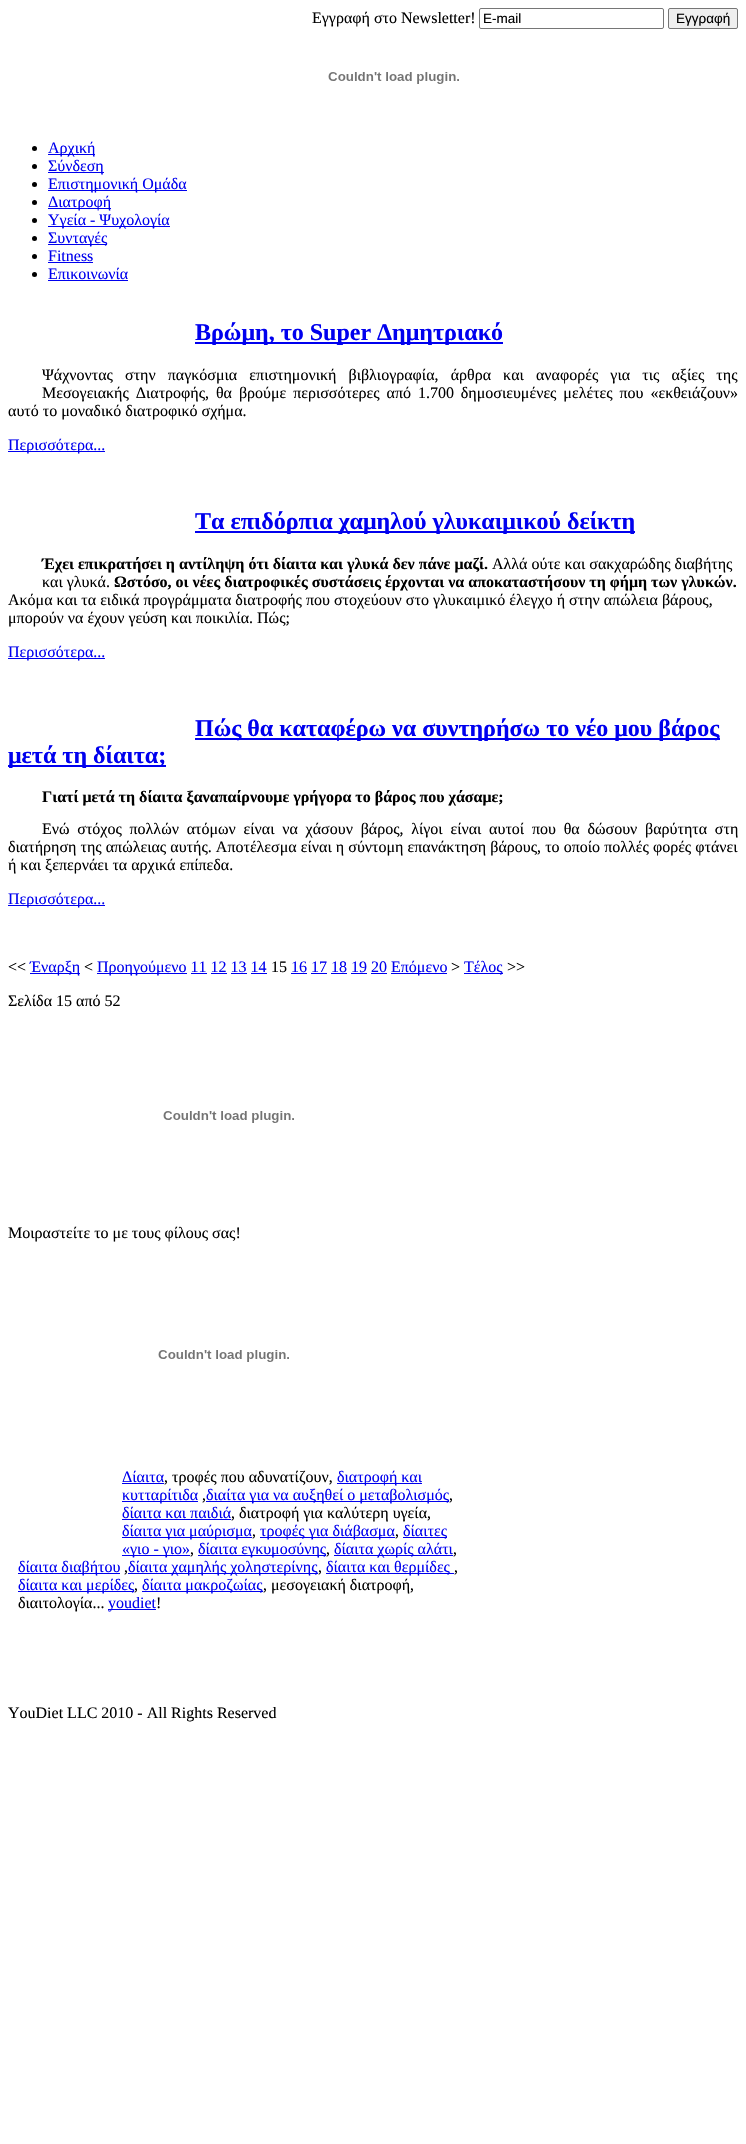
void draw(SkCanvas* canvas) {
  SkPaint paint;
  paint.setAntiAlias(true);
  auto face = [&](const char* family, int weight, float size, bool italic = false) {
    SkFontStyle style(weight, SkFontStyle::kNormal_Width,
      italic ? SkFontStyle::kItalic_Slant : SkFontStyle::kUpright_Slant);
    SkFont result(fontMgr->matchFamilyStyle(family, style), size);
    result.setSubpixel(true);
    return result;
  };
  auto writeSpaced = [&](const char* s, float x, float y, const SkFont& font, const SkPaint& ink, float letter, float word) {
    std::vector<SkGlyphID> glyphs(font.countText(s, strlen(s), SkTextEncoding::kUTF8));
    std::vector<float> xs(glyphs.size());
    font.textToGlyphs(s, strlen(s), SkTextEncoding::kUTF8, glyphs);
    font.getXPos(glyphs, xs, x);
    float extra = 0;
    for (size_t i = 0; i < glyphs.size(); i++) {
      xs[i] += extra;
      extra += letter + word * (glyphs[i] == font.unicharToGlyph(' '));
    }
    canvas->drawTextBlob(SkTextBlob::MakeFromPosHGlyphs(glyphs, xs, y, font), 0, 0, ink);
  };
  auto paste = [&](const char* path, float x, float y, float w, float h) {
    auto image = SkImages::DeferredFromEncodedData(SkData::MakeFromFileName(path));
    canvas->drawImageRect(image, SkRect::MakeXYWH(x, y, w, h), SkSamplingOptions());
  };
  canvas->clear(0xffffffff);
  paint.setStroke(true);
  paint.setStrokeWidth(1);
  paint.setColor(0xff767676);
  canvas->drawRoundRect(SkRect::MakeXYWH(479.5f, 8.5f, 184, 20), 1.5f, 1.5f, paint);
  paint.setStroke(false);
  paint.setColor(0xffefefef);
  canvas->drawRoundRect(SkRect::MakeXYWH(668.5f, 8.5f, 69, 20), 1.5f, 1.5f, paint);
  paint.setStroke(true);
  paint.setColor(0xff767676);
  canvas->drawRoundRect(SkRect::MakeXYWH(668.5f, 8.5f, 69, 20), 1.5f, 1.5f, paint);
  paste("img/1.png", 328, 72, 131, 12);
  paint.setStroke(false);
  paint.setColor(0xff000000);
  canvas->drawCircle(34.5f, 148.5f, 2.5f, paint);
  paint.setColor(0xff0000ee);
  canvas->drawRect(SkRect::MakeXYWH(48, 154, 47, 1), paint);
  paint.setColor(0xff000000);
  canvas->drawCircle(34.5f, 166.5f, 2.5f, paint);
  paint.setColor(0xff0000ee);
  canvas->drawRect(SkRect::MakeXYWH(48, 172, 56, 1), paint);
  paint.setColor(0xff000000);
  canvas->drawCircle(34.5f, 184.5f, 2.5f, paint);
  paint.setColor(0xff0000ee);
  canvas->drawRect(SkRect::MakeXYWH(48, 190, 139, 1), paint);
  paint.setColor(0xff000000);
  canvas->drawCircle(34.5f, 202.5f, 2.5f, paint);
  paint.setColor(0xff0000ee);
  canvas->drawRect(SkRect::MakeXYWH(48, 208, 63, 1), paint);
  paint.setColor(0xff000000);
  canvas->drawCircle(34.5f, 220.5f, 2.5f, paint);
  paint.setColor(0xff0000ee);
  canvas->drawRect(SkRect::MakeXYWH(48, 226, 122, 1), paint);
  paint.setColor(0xff000000);
  canvas->drawCircle(34.5f, 238.5f, 2.5f, paint);
  paint.setColor(0xff0000ee);
  canvas->drawRect(SkRect::MakeXYWH(48, 244, 59, 1), paint);
  paint.setColor(0xff000000);
  canvas->drawCircle(34.5f, 256.5f, 2.5f, paint);
  paint.setColor(0xff0000ee);
  canvas->drawRect(SkRect::MakeXYWH(48, 262, 45, 1), paint);
  paint.setColor(0xff000000);
  canvas->drawCircle(34.5f, 274.5f, 2.5f, paint);
  {
    const struct { float x, y, w, h; SkColor color; } items[] = {
      {48, 280, 80, 1, 0xff0000ee},
      {195, 342, 308, 2, 0xff0000ee},
      {8, 451, 97, 1, 0xff0000ee},
      {195, 531, 440, 2, 0xff0000ee},
      {8, 658, 97, 1, 0xff0000ee},
      {195, 738, 525, 2, 0xff0000ee},
      {8, 765, 158, 2, 0xff0000ee},
      {8, 905, 97, 1, 0xff0000ee},
      {30, 973, 50, 1, 0xff0000ee},
      {97, 973, 90, 1, 0xff0000ee},
      {291, 973, 16, 1, 0xff0000ee},
      {391, 973, 56, 1, 0xff0000ee},
      {464, 973, 39, 1, 0xff0000ee},
      {191, 973, 16, 1, 0xff0000ee},
      {211, 973, 16, 1, 0xff0000ee},
      {231, 973, 16, 1, 0xff0000ee},
      {251, 973, 16, 1, 0xff0000ee},
      {311, 973, 16, 1, 0xff0000ee},
      {331, 973, 16, 1, 0xff0000ee},
      {351, 973, 16, 1, 0xff0000ee},
      {371, 973, 16, 1, 0xff0000ee},
    };
    for (auto [x, y, w, h, color] : items) {
      paint.setColor(color);
      canvas->drawRect(SkRect::MakeXYWH(x, y, w, h), paint);
    }
  }
  paste("img/1.png", 163, 1111, 131, 12);
  paste("img/1.png", 158, 1350, 131, 12);
  {
    const struct { float x, y, w, h; SkColor color; } items[] = {
      {122, 1483, 42, 1, 0xff0000ee},
      {337, 1483, 85, 1, 0xff0000ee},
      {122, 1501, 76, 1, 0xff0000ee},
      {206, 1501, 243, 1, 0xff0000ee},
      {122, 1519, 109, 1, 0xff0000ee},
      {122, 1537, 130, 1, 0xff0000ee},
      {260, 1537, 135, 1, 0xff0000ee},
      {403, 1537, 44, 1, 0xff0000ee},
      {122, 1555, 68, 1, 0xff0000ee},
      {198, 1555, 128, 1, 0xff0000ee},
      {334, 1555, 119, 1, 0xff0000ee},
      {18, 1573, 102, 1, 0xff0000ee},
      {128, 1573, 190, 1, 0xff0000ee},
      {326, 1573, 128, 1, 0xff0000ee},
      {18, 1591, 116, 1, 0xff0000ee},
      {142, 1591, 121, 1, 0xff0000ee},
      {108, 1609, 48, 1, 0xff0000ee},
    };
    for (auto [x, y, w, h, color] : items) {
      paint.setColor(color);
      canvas->drawRect(SkRect::MakeXYWH(x, y, w, h), paint);
    }
  }
  auto f0 = face("Liberation Serif", 400, 16);
  paint.setColor(0xff000000);
  canvas->drawString("Εγγραφή στο Newsletter!", 312, 23, f0, paint);
  auto f1 = face("Liberation Sans", 400, 13.5f);
  canvas->drawString("E-mail", 483, 23, f1, paint);
  canvas->drawString("Εγγραφή", 676, 23, f1, paint);
  paint.setColor(0xff0000ee);
  {
    const struct { const char* s; float x, y; } items[] = {
      {"Αρχική", 48, 153},
      {"Σύνδεση", 48, 171},
      {"Επιστημονική Ομάδα", 48, 189},
      {"Διατροφή", 48, 207},
      {"Υγεία - Ψυχολογία", 48, 225},
      {"Συνταγές", 48, 243},
      {"Fitness", 48, 261},
      {"Επικοινωνία", 48, 279},
    };
    for (auto [s, x, y] : items) {
      canvas->drawString(s, x, y, f0, paint);
    }
  }
  auto f2 = face("Liberation Serif", 700, 24);
  canvas->drawString("Βρώμη, το Super Δημητριακό", 195, 340, f2, paint);
  paint.setColor(0xff000000);
  writeSpaced("Ψάχνοντας στην παγκόσμια επιστημονική βιβλιογραφία, άρθρα και αναφορές για τις αξίες της", 42, 380, f0, paint, 0, 8.1f);
  writeSpaced("Μεσογειακής Διατροφής, θα βρούμε περισσότερες από 1.700 δημοσιευμένες μελέτες που «εκθειάζουν»", 42, 398, f0, paint, 0, 2.9f);
  canvas->drawString("αυτό το μοναδικό διατροφικό σχήμα.", 8, 416, f0, paint);
  paint.setColor(0xff0000ee);
  canvas->drawString("Περισσότερα...", 8, 450, f0, paint);
  canvas->drawString("Τα επιδόρπια χαμηλού γλυκαιμικού δείκτη", 195, 529, f2, paint);
  auto f3 = face("Liberation Serif", 700, 16);
  paint.setColor(0xff000000);
  canvas->drawString("Έχει επικρατήσει η αντίληψη ότι δίαιτα και γλυκά δεν πάνε μαζί.", 42, 569, f3, paint);
  canvas->drawString("Αλλά ούτε και σακχαρώδης διαβήτης", 492, 569, f0, paint);
  canvas->drawString("και γλυκά.", 42, 587, f0, paint);
  canvas->drawString("Ωστόσο, οι νέες διατροφικές συστάσεις έρχονται να αποκαταστήσουν τη φήμη των γλυκών.", 114, 587, f3, paint);
  canvas->drawString("Ακόμα και τα ειδικά προγράμματα διατροφής που στοχεύουν στο γλυκαιμικό έλεγχο ή στην απώλεια βάρους,", 8, 605, f0, paint);
  canvas->drawString("μπορούν να έχουν γεύση και ποικιλία. Πώς;", 8, 623, f0, paint);
  paint.setColor(0xff0000ee);
  canvas->drawString("Περισσότερα...", 8, 657, f0, paint);
  canvas->drawString("Πώς θα καταφέρω να συντηρήσω το νέο μου βάρος", 195, 736, f2, paint);
  canvas->drawString("μετά τη δίαιτα;", 8, 763, f2, paint);
  paint.setColor(0xff000000);
  canvas->drawString("Γιατί μετά τη δίαιτα ξαναπαίρνουμε γρήγορα το βάρος που χάσαμε;", 42, 802, f3, paint);
  writeSpaced("Ενώ στόχος πολλών ατόμων είναι να χάσουν βάρος, λίγοι είναι αυτοί που θα δώσουν βαρύτητα στη", 42, 834, f0, paint, 0, 3.75f);
  writeSpaced("διατήρηση της απώλειας αυτής. Αποτέλεσμα είναι η σύντομη επανάκτηση βάρους, το οποίο πολλές φορές φτάνει", 8, 852, f0, paint, 0, 0.1f);
  canvas->drawString("ή και ξεπερνάει τα αρχικά επίπεδα.", 8, 870, f0, paint);
  paint.setColor(0xff0000ee);
  canvas->drawString("Περισσότερα...", 8, 904, f0, paint);
  paint.setColor(0xff000000);
  canvas->drawString("<<", 8, 972, f0, paint);
  paint.setColor(0xff0000ee);
  canvas->drawString("Έναρξη", 30, 972, f0, paint);
  paint.setColor(0xff000000);
  canvas->drawString("<", 84, 972, f0, paint);
  paint.setColor(0xff0000ee);
  canvas->drawString("Προηγούμενο 11 12 13 14", 97, 972, f0, paint);
  paint.setColor(0xff000000);
  canvas->drawString("15", 271, 972, f0, paint);
  paint.setColor(0xff0000ee);
  canvas->drawString("16 17 18 19 20", 291, 972, f0, paint);
  canvas->drawString("Επόμενο", 391, 972, f0, paint);
  paint.setColor(0xff000000);
  canvas->drawString(">", 451, 972, f0, paint);
  paint.setColor(0xff0000ee);
  canvas->drawString("Τέλος", 464, 972, f0, paint);
  paint.setColor(0xff000000);
  {
    const struct { const char* s; float x, y; } items[] = {
      {">>", 507, 972},
      {"Σελίδα 15 από 52", 8, 1006},
      {"Μοιραστείτε το με τους φίλους σας!", 8, 1238},
    };
    for (auto [s, x, y] : items) {
      canvas->drawString(s, x, y, f0, paint);
    }
  }
  paint.setColor(0xff0000ee);
  canvas->drawString("Δίαιτα", 122, 1482, f0, paint);
  paint.setColor(0xff000000);
  canvas->drawString(", τροφές που αδυνατίζουν,", 164, 1482, f0, paint);
  paint.setColor(0xff0000ee);
  canvas->drawString("διατροφή και", 337, 1482, f0, paint);
  canvas->drawString("κυτταρίτιδα", 122, 1500, f0, paint);
  paint.setColor(0xff000000);
  canvas->drawString(",", 202, 1500, f0, paint);
  paint.setColor(0xff0000ee);
  canvas->drawString("διαίτα για να αυξηθεί ο μεταβολισμός", 206, 1500, f0, paint);
  paint.setColor(0xff000000);
  canvas->drawString(",", 449, 1500, f0, paint);
  paint.setColor(0xff0000ee);
  canvas->drawString("δίαιτα και παιδιά", 122, 1518, f0, paint);
  paint.setColor(0xff000000);
  canvas->drawString(", διατροφή για καλύτερη υγεία,", 231, 1518, f0, paint);
  paint.setColor(0xff0000ee);
  canvas->drawString("δίαιτα για μαύρισμα", 122, 1536, f0, paint);
  paint.setColor(0xff000000);
  canvas->drawString(",", 252, 1536, f0, paint);
  paint.setColor(0xff0000ee);
  canvas->drawString("τροφές για διάβασμα", 260, 1536, f0, paint);
  paint.setColor(0xff000000);
  canvas->drawString(",", 395, 1536, f0, paint);
  paint.setColor(0xff0000ee);
  canvas->drawString("δίαιτες", 403, 1536, f0, paint);
  canvas->drawString("«γιο - γιο»", 122, 1554, f0, paint);
  paint.setColor(0xff000000);
  canvas->drawString(",", 190, 1554, f0, paint);
  paint.setColor(0xff0000ee);
  canvas->drawString("δίαιτα εγκυμοσύνης", 198, 1554, f0, paint);
  paint.setColor(0xff000000);
  canvas->drawString(",", 326, 1554, f0, paint);
  paint.setColor(0xff0000ee);
  canvas->drawString("δίαιτα χωρίς αλάτι", 334, 1554, f0, paint);
  paint.setColor(0xff000000);
  canvas->drawString(",", 453, 1554, f0, paint);
  paint.setColor(0xff0000ee);
  canvas->drawString("δίαιτα διαβήτου", 18, 1572, f0, paint);
  paint.setColor(0xff000000);
  canvas->drawString(",", 124, 1572, f0, paint);
  paint.setColor(0xff0000ee);
  canvas->drawString("δίαιτα χαμηλής χοληστερίνης", 128, 1572, f0, paint);
  paint.setColor(0xff000000);
  canvas->drawString(",", 318, 1572, f0, paint);
  paint.setColor(0xff0000ee);
  canvas->drawString("δίαιτα και θερμίδες", 326, 1572, f0, paint);
  paint.setColor(0xff000000);
  canvas->drawString(",", 454, 1572, f0, paint);
  paint.setColor(0xff0000ee);
  canvas->drawString("δίαιτα και μερίδες", 18, 1590, f0, paint);
  paint.setColor(0xff000000);
  canvas->drawString(",", 134, 1590, f0, paint);
  paint.setColor(0xff0000ee);
  canvas->drawString("δίαιτα μακροζωίας", 142, 1590, f0, paint);
  paint.setColor(0xff000000);
  canvas->drawString(", μεσογειακή διατροφή,", 263, 1590, f0, paint);
  canvas->drawString("διαιτολογία...", 18, 1608, f0, paint);
  paint.setColor(0xff0000ee);
  canvas->drawString("youdiet", 108, 1608, f0, paint);
  paint.setColor(0xff000000);
  canvas->drawString("!", 156, 1608, f0, paint);
  canvas->drawString("YouDiet LLC 2010 - All Rights Reserved", 8, 1718, f0, paint);
}
